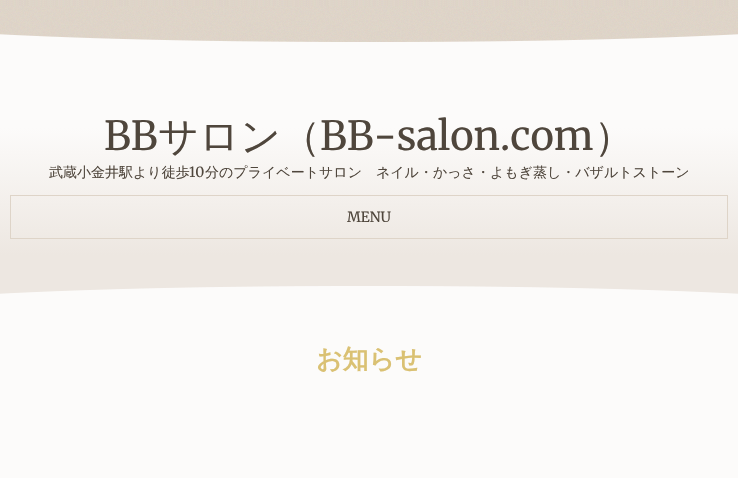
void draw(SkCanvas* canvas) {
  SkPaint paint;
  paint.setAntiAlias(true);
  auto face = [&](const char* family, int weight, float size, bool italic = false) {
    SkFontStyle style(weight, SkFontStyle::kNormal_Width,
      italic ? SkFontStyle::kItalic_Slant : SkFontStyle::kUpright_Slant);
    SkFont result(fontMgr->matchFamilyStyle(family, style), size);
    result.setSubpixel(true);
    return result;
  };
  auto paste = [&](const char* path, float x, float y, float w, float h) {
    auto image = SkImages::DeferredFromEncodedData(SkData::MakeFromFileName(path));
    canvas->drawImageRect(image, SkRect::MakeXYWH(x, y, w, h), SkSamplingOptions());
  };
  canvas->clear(0xfffcfbfa);
  paste("img/1.png", 0, 0, 738, 294);
  paste("img/2.png", 0, 6, 738, 36);
  paint.setStroke(true);
  paint.setStrokeWidth(1);
  paint.setColor(0xffded4c8);
  canvas->drawRect(SkRect::MakeXYWH(10.5f, 195.5f, 717, 43), paint);
  paste("img/3.png", 0, 286, 738, 33);
  auto f0 = face("Merriweather", 400, 40);
  paint.setStroke(false);
  paint.setColor(0xff4f463c);
  canvas->drawString("BB", 104, 150, f0, paint);
  auto f1 = face("WenQuanYi Zen Hei", 500, 40);
  canvas->drawString("サロン（", 158, 150, f1, paint);
  canvas->drawString("BB-salon.com", 320, 150, f0, paint);
  canvas->drawString("）", 594, 150, f1, paint);
  auto f2 = face("WenQuanYi Zen Hei", 500, 14);
  canvas->drawString("武蔵小金井駅より徒歩", 49, 177, f2, paint);
  auto f3 = face("Merriweather", 400, 14);
  canvas->drawString("10", 189, 177, f3, paint);
  canvas->drawString("分のプライベートサロン　ネイル・かっさ・よもぎ蒸し・バザルトストーン", 205, 177, f2, paint);
  canvas->drawString("MENU", 347, 222, f3, paint);
  auto f4 = face("WenQuanYi Zen Hei", 700, 26);
  paint.setColor(0xffdac173);
  canvas->drawString("お知らせ", 316, 368, f4, paint);
}
